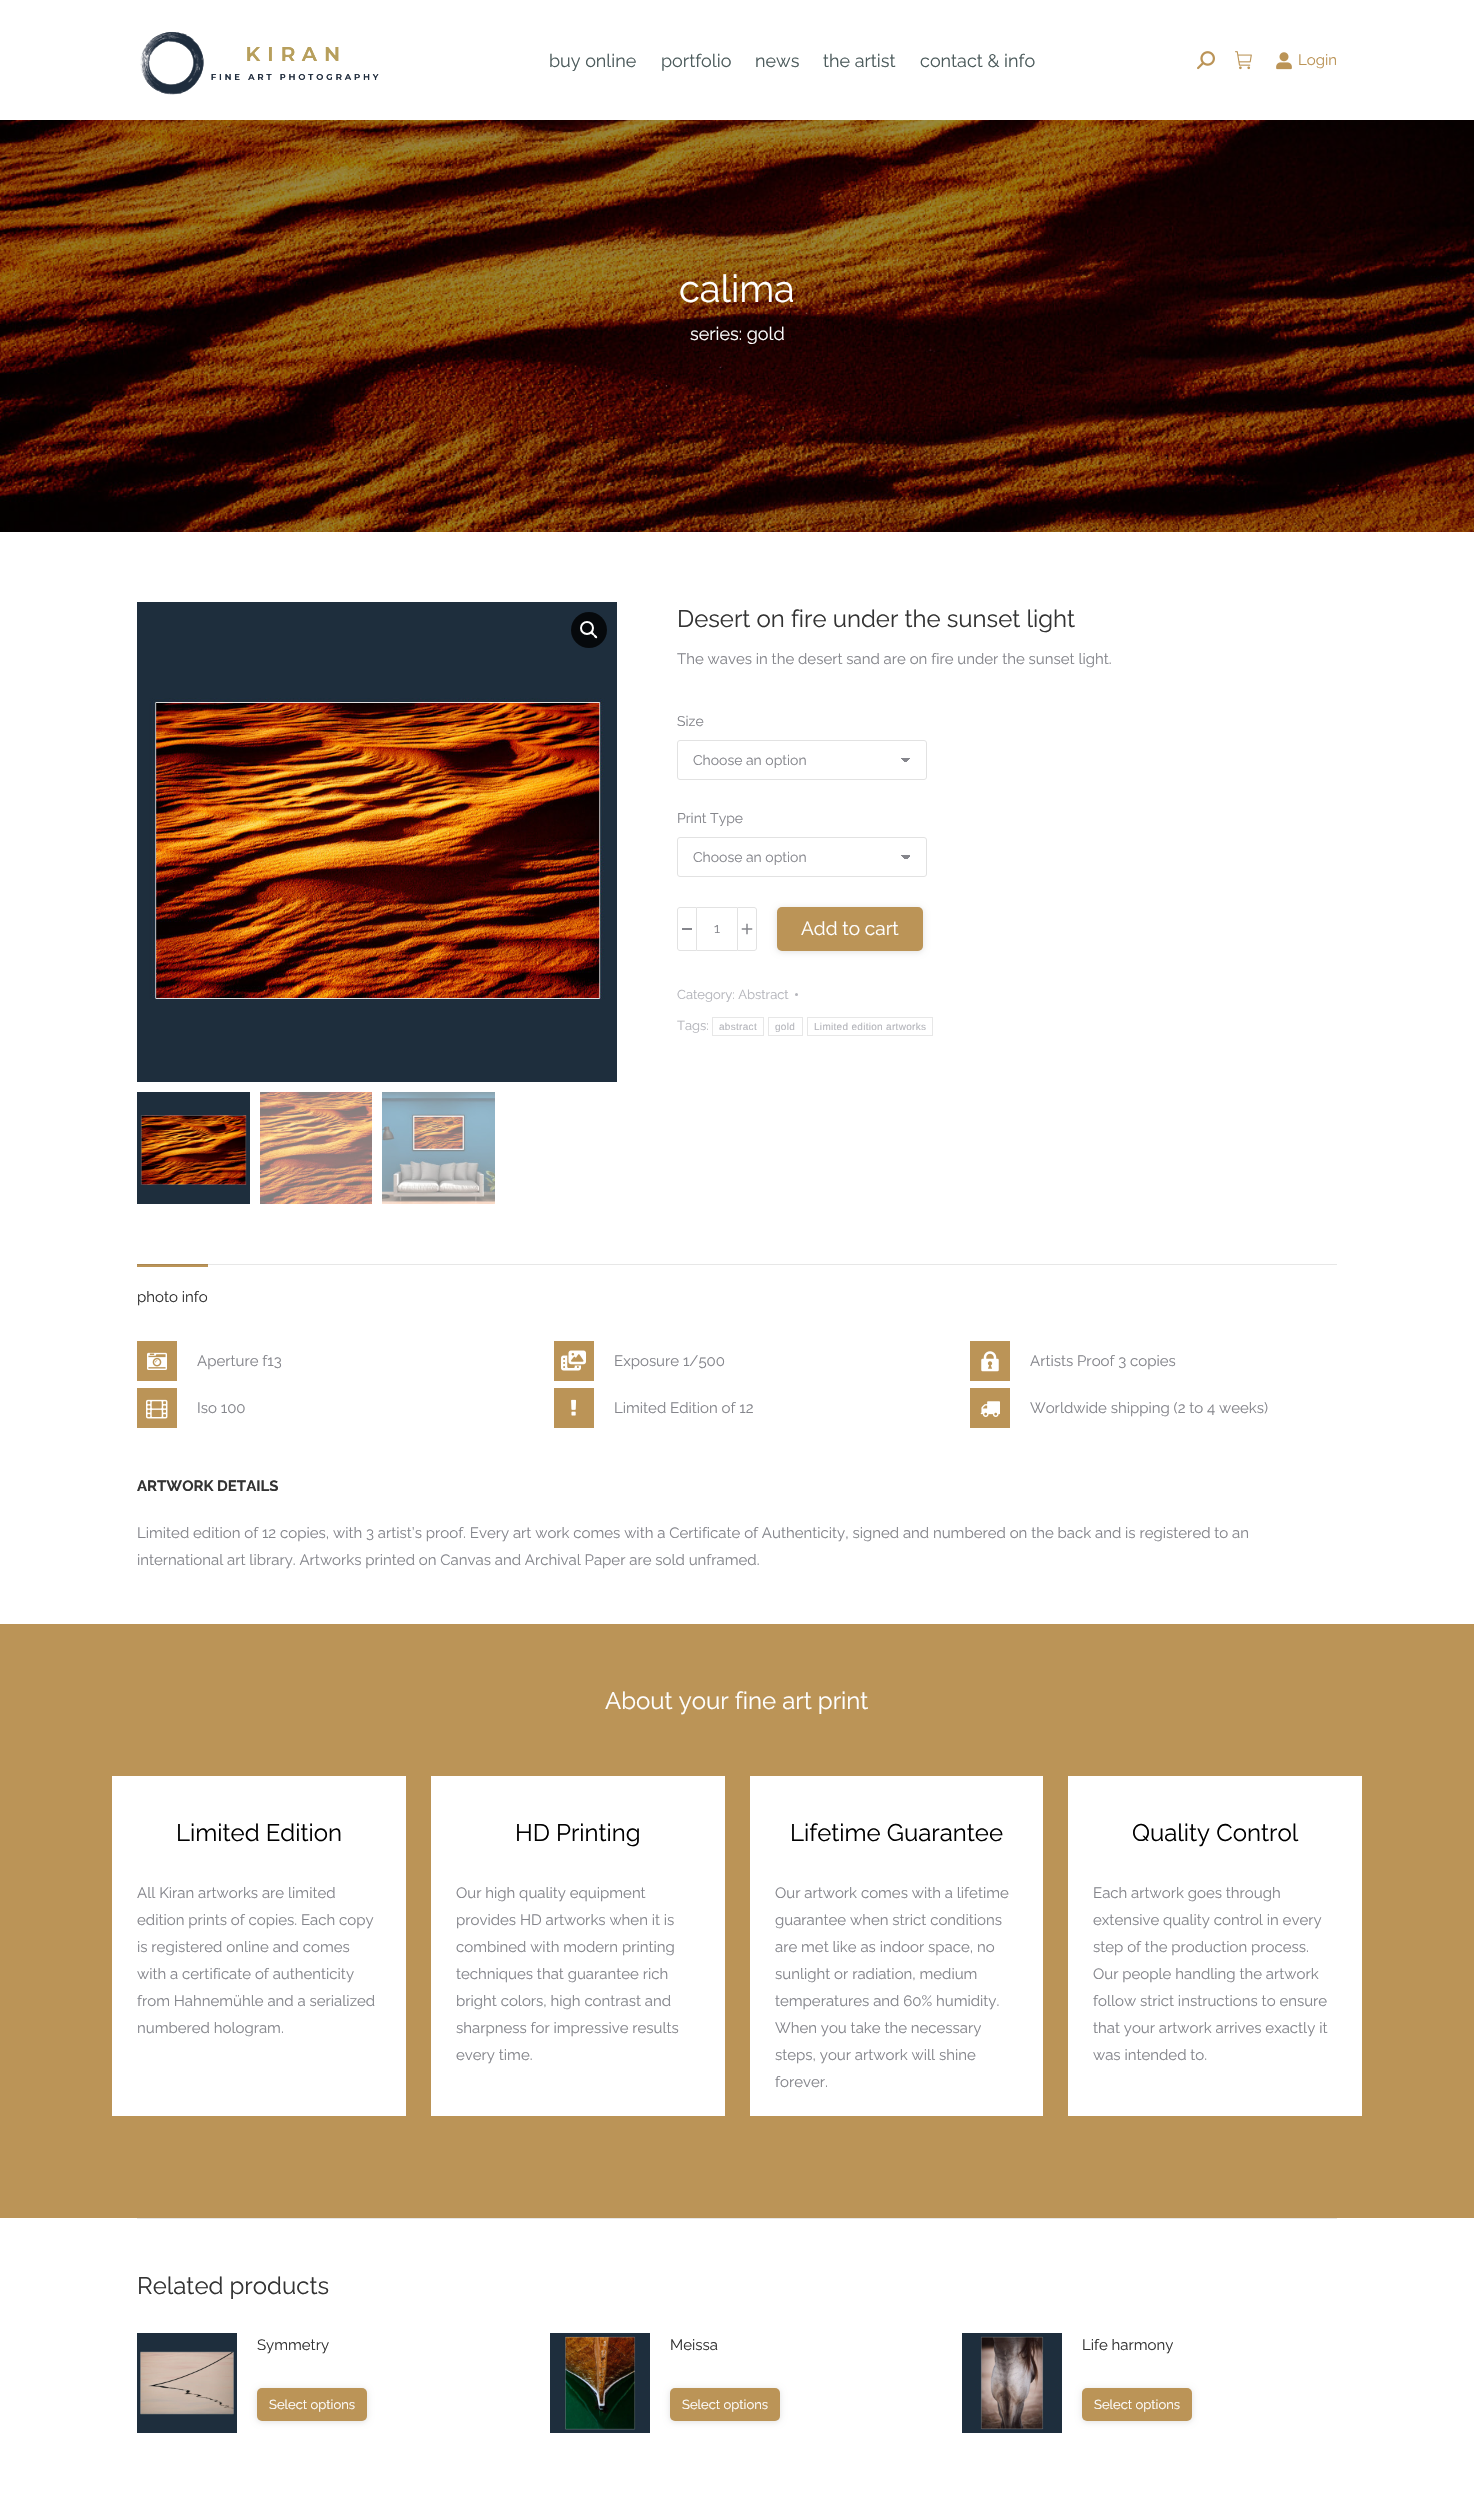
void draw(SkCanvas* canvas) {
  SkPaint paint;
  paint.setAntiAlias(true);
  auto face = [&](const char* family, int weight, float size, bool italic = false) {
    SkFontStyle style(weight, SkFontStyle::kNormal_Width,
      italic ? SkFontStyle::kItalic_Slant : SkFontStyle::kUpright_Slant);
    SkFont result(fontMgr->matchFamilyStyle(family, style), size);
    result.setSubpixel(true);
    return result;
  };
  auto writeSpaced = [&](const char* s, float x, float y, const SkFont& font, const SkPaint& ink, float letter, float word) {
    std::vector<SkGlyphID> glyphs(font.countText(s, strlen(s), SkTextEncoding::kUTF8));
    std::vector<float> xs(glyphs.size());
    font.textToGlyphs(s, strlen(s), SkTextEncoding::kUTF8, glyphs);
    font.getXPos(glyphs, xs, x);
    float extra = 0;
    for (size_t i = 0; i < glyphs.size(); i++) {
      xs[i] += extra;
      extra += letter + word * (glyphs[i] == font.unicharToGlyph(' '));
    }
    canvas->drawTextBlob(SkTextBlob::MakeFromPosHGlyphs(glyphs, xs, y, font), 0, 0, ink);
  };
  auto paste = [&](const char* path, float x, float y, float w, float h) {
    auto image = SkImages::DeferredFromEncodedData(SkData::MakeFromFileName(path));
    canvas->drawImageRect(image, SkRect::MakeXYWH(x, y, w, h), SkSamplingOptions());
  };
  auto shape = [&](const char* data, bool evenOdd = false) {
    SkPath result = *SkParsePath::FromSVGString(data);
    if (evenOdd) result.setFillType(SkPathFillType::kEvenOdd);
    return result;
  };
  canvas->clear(0xffffffff);
  paint.setColor(0xffe7e7e7);
  canvas->drawRect(SkRect::MakeXYWH(208, 1264, 1129, 1), paint);
  paste("img/1.png", 140, 31, 239, 64);
  paste("img/2.png", 1197, 51, 18, 19);
  paste("img/3.png", 1235, 51, 17, 19);
  paste("img/4.png", 1276, 52, 16, 18);
  paste("img/5.png", 0, 120, 1474, 412);
  paste("img/6.png", 137, 602, 480, 480);
  paint.setColor(0xff06090c);
  canvas->drawCircle(589, 630, 18, paint);
  paint.setStroke(true);
  paint.setStrokeWidth(2);
  paint.setColor(0xffffffff);
  canvas->drawCircle(587, 628, 6, paint);
  paint.setStroke(false);
  canvas->drawPath(shape("M591 632C592.5 631 594 633.5 594.5 634.5C595.5 635 598 636.5 597 638C595.5 639 594 636.5 593.5 635.5C592.5 635 590 633.5 591 632Z"), paint);
  paste("img/7.png", 137, 1092, 113, 112);
  paste("img/8.png", 260, 1092, 112, 112);
  paste("img/9.png", 382, 1092, 113, 112);
  {
    const SkColor colors[] = {0xff85868c, 0xffffffff};
    const float stops[] = {0.5f, 0.5f};
    const SkPoint ends[] = {{906, 758}, {911, 763}};
    paint.setShader(SkGradientShader::MakeLinear(ends, colors, stops, 2, SkTileMode::kClamp));
    paint.setAlpha(255);
  }
  canvas->drawRect(SkRect::MakeXYWH(906, 758, 5, 4), paint);
  {
    const SkColor colors[] = {0xffffffff, 0xff85868c};
    const float stops[] = {0.5f, 0.5f};
    const SkPoint ends[] = {{901, 763}, {906, 758}};
    paint.setShader(SkGradientShader::MakeLinear(ends, colors, stops, 2, SkTileMode::kClamp));
    paint.setAlpha(255);
  }
  canvas->drawRect(SkRect::MakeXYWH(901, 758, 5, 4), paint);
  paint.setStroke(true);
  paint.setStrokeWidth(1);
  paint.setShader(nullptr);
  paint.setColor(0xffe2e2e2);
  canvas->drawRoundRect(SkRect::MakeXYWH(677.5f, 740.5f, 249, 39), 2.5f, 2.5f, paint);
  paint.setStroke(false);
  {
    const SkColor colors[] = {0xff85868c, 0xffffffff};
    const float stops[] = {0.5f, 0.5f};
    const SkPoint ends[] = {{906, 855}, {911, 860}};
    paint.setShader(SkGradientShader::MakeLinear(ends, colors, stops, 2, SkTileMode::kClamp));
    paint.setAlpha(255);
  }
  canvas->drawRect(SkRect::MakeXYWH(906, 855, 5, 4), paint);
  {
    const SkColor colors[] = {0xffffffff, 0xff85868c};
    const float stops[] = {0.5f, 0.5f};
    const SkPoint ends[] = {{901, 860}, {906, 855}};
    paint.setShader(SkGradientShader::MakeLinear(ends, colors, stops, 2, SkTileMode::kClamp));
    paint.setAlpha(255);
  }
  canvas->drawRect(SkRect::MakeXYWH(901, 855, 5, 4), paint);
  paint.setStroke(true);
  paint.setShader(nullptr);
  paint.setColor(0xffe2e2e2);
  canvas->drawRoundRect(SkRect::MakeXYWH(677.5f, 837.5f, 249, 39), 2.5f, 2.5f, paint);
  canvas->drawPath(shape("M680 907.5H696.5V950.5H680C678.5 950.5 677.5 949.5 677.5 948V910C677.5 908.5 678.5 907.5 680 907.5Z"), paint);
  paint.setStroke(false);
  {
    const struct { float x, y, w, h; SkColor color; } items[] = {
      {682, 928, 10, 2, 0xff85868c},
      {697, 907, 40, 1, 0xffe2e2e2},
      {697, 950, 40, 1, 0xffe2e2e2},
    };
    for (auto [x, y, w, h, color] : items) {
      paint.setColor(color);
      canvas->drawRect(SkRect::MakeXYWH(x, y, w, h), paint);
    }
  }
  paint.setStroke(true);
  canvas->drawPath(shape("M737.5 907.5H754C755.5 907.5 756.5 908.5 756.5 910V948C756.5 949.5 755.5 950.5 754 950.5H737.5Z"), paint);
  paste("img/10.png", 741, 923, 12, 12);
  paint.setStroke(false);
  paint.setColor(0x1f000000);
  paint.setMaskFilter(SkMaskFilter::MakeBlur(kNormal_SkBlurStyle, 3));
  canvas->drawRoundRect(SkRect::MakeXYWH(777, 908, 146, 44), 5, 5, paint);
  paint.setMaskFilter(nullptr);
  paint.setColor(0xffbb9457);
  canvas->drawRoundRect(SkRect::MakeXYWH(777, 907, 146, 44), 5, 5, paint);
  paint.setColor(0xffb4b5bb);
  canvas->drawCircle(796.5f, 994.5f, 1.5f, paint);
  paint.setStroke(true);
  paint.setColor(0xffe7e7e7);
  canvas->drawRect(SkRect::MakeXYWH(712.5f, 1017.5f, 51, 18), paint);
  canvas->drawRect(SkRect::MakeXYWH(768.5f, 1017.5f, 34, 18), paint);
  canvas->drawRect(SkRect::MakeXYWH(807.5f, 1017.5f, 125, 18), paint);
  paint.setStroke(false);
  {
    const struct { float x, y, w, h; SkColor color; } items[] = {
      {137, 1265, 71, 2, 0xffbb9457},
      {137, 1264, 71, 1, 0xffab8853},
      {137, 1341, 40, 40, 0xffbb9457},
    };
    for (auto [x, y, w, h, color] : items) {
      paint.setColor(color);
      canvas->drawRect(SkRect::MakeXYWH(x, y, w, h), paint);
    }
  }
  paste("img/11.png", 147, 1352, 20, 18);
  canvas->drawRect(SkRect::MakeXYWH(137, 1388, 40, 40), paint);
  paste("img/12.png", 146, 1399, 22, 20);
  canvas->drawRect(SkRect::MakeXYWH(554, 1341, 40, 40), paint);
  paste("img/13.png", 561, 1350, 25, 21);
  canvas->drawRect(SkRect::MakeXYWH(554, 1388, 40, 40), paint);
  paste("img/14.png", 571, 1399, 5, 17);
  canvas->drawRect(SkRect::MakeXYWH(970, 1341, 40, 40), paint);
  paste("img/15.png", 981, 1351, 18, 21);
  canvas->drawRect(SkRect::MakeXYWH(970, 1388, 40, 40), paint);
  paste("img/16.png", 980, 1401, 20, 16);
  {
    const struct { float x, y, w, h; SkColor color; } items[] = {
      {0, 1624, 1474, 594, 0xffbb9457},
      {112, 1776, 294, 340, 0xffffffff},
      {431, 1776, 294, 340, 0xffffffff},
      {750, 1776, 293, 340, 0xffffffff},
      {1068, 1776, 294, 340, 0xffffffff},
      {137, 2218, 1200, 1, 0xffe7e7e7},
    };
    for (auto [x, y, w, h, color] : items) {
      paint.setColor(color);
      canvas->drawRect(SkRect::MakeXYWH(x, y, w, h), paint);
    }
  }
  paste("img/17.png", 137, 2333, 100, 100);
  paint.setColor(0x1f000000);
  paint.setMaskFilter(SkMaskFilter::MakeBlur(kNormal_SkBlurStyle, 3));
  canvas->drawRoundRect(SkRect::MakeXYWH(257, 2389, 110, 33), 5, 5, paint);
  paint.setMaskFilter(nullptr);
  paint.setColor(0xffbb9457);
  canvas->drawRoundRect(SkRect::MakeXYWH(257, 2388, 110, 33), 5, 5, paint);
  paste("img/18.png", 550, 2333, 100, 100);
  paint.setColor(0x1f000000);
  paint.setMaskFilter(SkMaskFilter::MakeBlur(kNormal_SkBlurStyle, 3));
  canvas->drawRoundRect(SkRect::MakeXYWH(670, 2389, 110, 33), 5, 5, paint);
  paint.setMaskFilter(nullptr);
  paint.setColor(0xffbb9457);
  canvas->drawRoundRect(SkRect::MakeXYWH(670, 2388, 110, 33), 5, 5, paint);
  paste("img/19.png", 962, 2333, 100, 100);
  paint.setColor(0x1f000000);
  paint.setMaskFilter(SkMaskFilter::MakeBlur(kNormal_SkBlurStyle, 3));
  canvas->drawRoundRect(SkRect::MakeXYWH(1082, 2389, 110, 33), 5, 5, paint);
  paint.setMaskFilter(nullptr);
  paint.setColor(0xffbb9457);
  canvas->drawRoundRect(SkRect::MakeXYWH(1082, 2388, 110, 33), 5, 5, paint);
  auto f0 = face("Raleway", 400, 18);
  paint.setColor(0xff4c5b5c);
  {
    const struct { const char* s; float x, y; } items[] = {
      {"buy online", 549, 67},
      {"portfolio", 661, 67},
      {"news", 755, 67},
      {"the artist", 823, 67},
      {"contact & info", 920, 67},
    };
    for (auto [s, x, y] : items) {
      canvas->drawString(s, x, y, f0, paint);
    }
  }
  auto f1 = face("Raleway", 400, 15);
  paint.setColor(0xffbb9457);
  canvas->drawString("Login", 1298, 65, f1, paint);
  auto f2 = face("Raleway", 400, 38);
  paint.setColor(0xffffffff);
  canvas->drawString("calima", 679, 302, f2, paint);
  canvas->drawString("series: gold", 690, 340, f0, paint);
  auto f3 = face("Raleway", 400, 24);
  paint.setColor(0xff333333);
  canvas->drawString("Desert on fire under the sunset light", 677, 627, f3, paint);
  paint.setColor(0xff85868c);
  canvas->drawString("The waves in the desert sand are on fire under the sunset light.", 677, 664, f1, paint);
  auto f4 = face("Raleway", 400, 14);
  {
    const struct { const char* s; float x, y; } items[] = {
      {"Size", 677, 726},
      {"Choose an option", 693, 765},
      {"Print Type", 677, 823},
      {"Choose an option", 693, 862},
      {"1", 714, 933},
    };
    for (auto [s, x, y] : items) {
      canvas->drawString(s, x, y, f4, paint);
    }
  }
  auto f5 = face("Raleway", 400, 19);
  paint.setColor(0xffffffff);
  canvas->drawString("Add to cart", 801, 935, f5, paint);
  auto f6 = face("Raleway", 400, 13);
  paint.setColor(0xffb4b5bb);
  canvas->drawString("Category: Abstract", 677, 999, f6, paint);
  canvas->drawString("Tags:", 677, 1030, f6, paint);
  auto f7 = face("Liberation Sans", 400, 10);
  {
    const struct { const char* s; float x, y; } items[] = {
      {"abstract", 719, 1030},
      {"gold", 775, 1030},
      {"Limited edition artworks", 814, 1030},
    };
    for (auto [s, x, y] : items) {
      writeSpaced(s, x, y, f7, paint, 0.3f, 0);
    }
  }
  paint.setColor(0xff333333);
  canvas->drawString("photo info", 137, 1302, f1, paint);
  paint.setColor(0xff85868c);
  {
    const struct { const char* s; float x, y; } items[] = {
      {"Aperture f13", 197, 1366},
      {"Iso 100", 197, 1413},
      {"Exposure 1/500", 614, 1366},
      {"Limited Edition of 12", 614, 1413},
      {"Artists Proof 3 copies", 1030, 1366},
      {"Worldwide shipping (2 to 4 weeks)", 1030, 1413},
    };
    for (auto [s, x, y] : items) {
      canvas->drawString(s, x, y, f1, paint);
    }
  }
  auto f8 = face("Raleway", 700, 15);
  paint.setColor(0xff333333);
  canvas->drawString("ARTWORK DETAILS", 137, 1491, f8, paint);
  paint.setColor(0xff85868c);
  canvas->drawString("Limited edition of 12 copies, with 3 artist’s proof. Every art work comes with a Certificate of Authenticity, signed and numbered on the back and is registered to an", 137, 1538, f1, paint);
  canvas->drawString("international art library. Artworks printed on Canvas and Archival Paper are sold unframed.", 137, 1565, f1, paint);
  paint.setColor(0xffffffff);
  canvas->drawString("About your fine art print", 605, 1709, f3, paint);
  paint.setColor(0xff000000);
  canvas->drawString("Limited Edition", 176, 1841, f3, paint);
  paint.setColor(0xff85868c);
  {
    const struct { const char* s; float x, y; } items[] = {
      {"All Kiran artworks are limited", 137, 1898},
      {"edition prints of copies. Each copy", 137, 1925},
      {"is registered online and comes", 137, 1952},
      {"with a certificate of authenticity", 137, 1979},
      {"from Hahnemühle and a serialized", 137, 2006},
      {"numbered hologram.", 137, 2033},
    };
    for (auto [s, x, y] : items) {
      canvas->drawString(s, x, y, f1, paint);
    }
  }
  paint.setColor(0xff000000);
  canvas->drawString("HD Printing", 515, 1841, f3, paint);
  paint.setColor(0xff85868c);
  {
    const struct { const char* s; float x, y; } items[] = {
      {"Our high quality equipment", 456, 1898},
      {"provides HD artworks when it is", 456, 1925},
      {"combined with modern printing", 456, 1952},
      {"techniques that guarantee rich", 456, 1979},
      {"bright colors, high contrast and", 456, 2006},
      {"sharpness for impressive results", 456, 2033},
      {"every time.", 456, 2060},
    };
    for (auto [s, x, y] : items) {
      canvas->drawString(s, x, y, f1, paint);
    }
  }
  paint.setColor(0xff000000);
  canvas->drawString("Lifetime Guarantee", 790, 1841, f3, paint);
  paint.setColor(0xff85868c);
  {
    const struct { const char* s; float x, y; } items[] = {
      {"Our artwork comes with a lifetime", 775, 1898},
      {"guarantee when strict conditions", 775, 1925},
      {"are met like as indoor space, no", 775, 1952},
      {"sunlight or radiation, medium", 775, 1979},
      {"temperatures and 60% humidity.", 775, 2006},
      {"When you take the necessary", 775, 2033},
      {"steps, your artwork will shine", 775, 2060},
      {"forever.", 775, 2087},
    };
    for (auto [s, x, y] : items) {
      canvas->drawString(s, x, y, f1, paint);
    }
  }
  paint.setColor(0xff000000);
  canvas->drawString("Quality Control", 1132, 1841, f3, paint);
  paint.setColor(0xff85868c);
  {
    const struct { const char* s; float x, y; } items[] = {
      {"Each artwork goes through", 1093, 1898},
      {"extensive quality control in every", 1093, 1925},
      {"step of the production process.", 1093, 1952},
      {"Our people handling the artwork", 1093, 1979},
      {"follow strict instructions to ensure", 1093, 2006},
      {"that your artwork arrives exactly it", 1093, 2033},
      {"was intended to.", 1093, 2060},
    };
    for (auto [s, x, y] : items) {
      canvas->drawString(s, x, y, f1, paint);
    }
  }
  paint.setColor(0xff333333);
  canvas->drawString("Related products", 137, 2294, f3, paint);
  canvas->drawString("Symmetry", 257, 2350, f1, paint);
  paint.setColor(0xffffffff);
  canvas->drawString("Select options", 269, 2409, f6, paint);
  paint.setColor(0xff333333);
  canvas->drawString("Meissa", 670, 2350, f1, paint);
  paint.setColor(0xffffffff);
  canvas->drawString("Select options", 682, 2409, f6, paint);
  paint.setColor(0xff333333);
  canvas->drawString("Life harmony", 1082, 2350, f1, paint);
  paint.setColor(0xffffffff);
  canvas->drawString("Select options", 1094, 2409, f6, paint);
}
